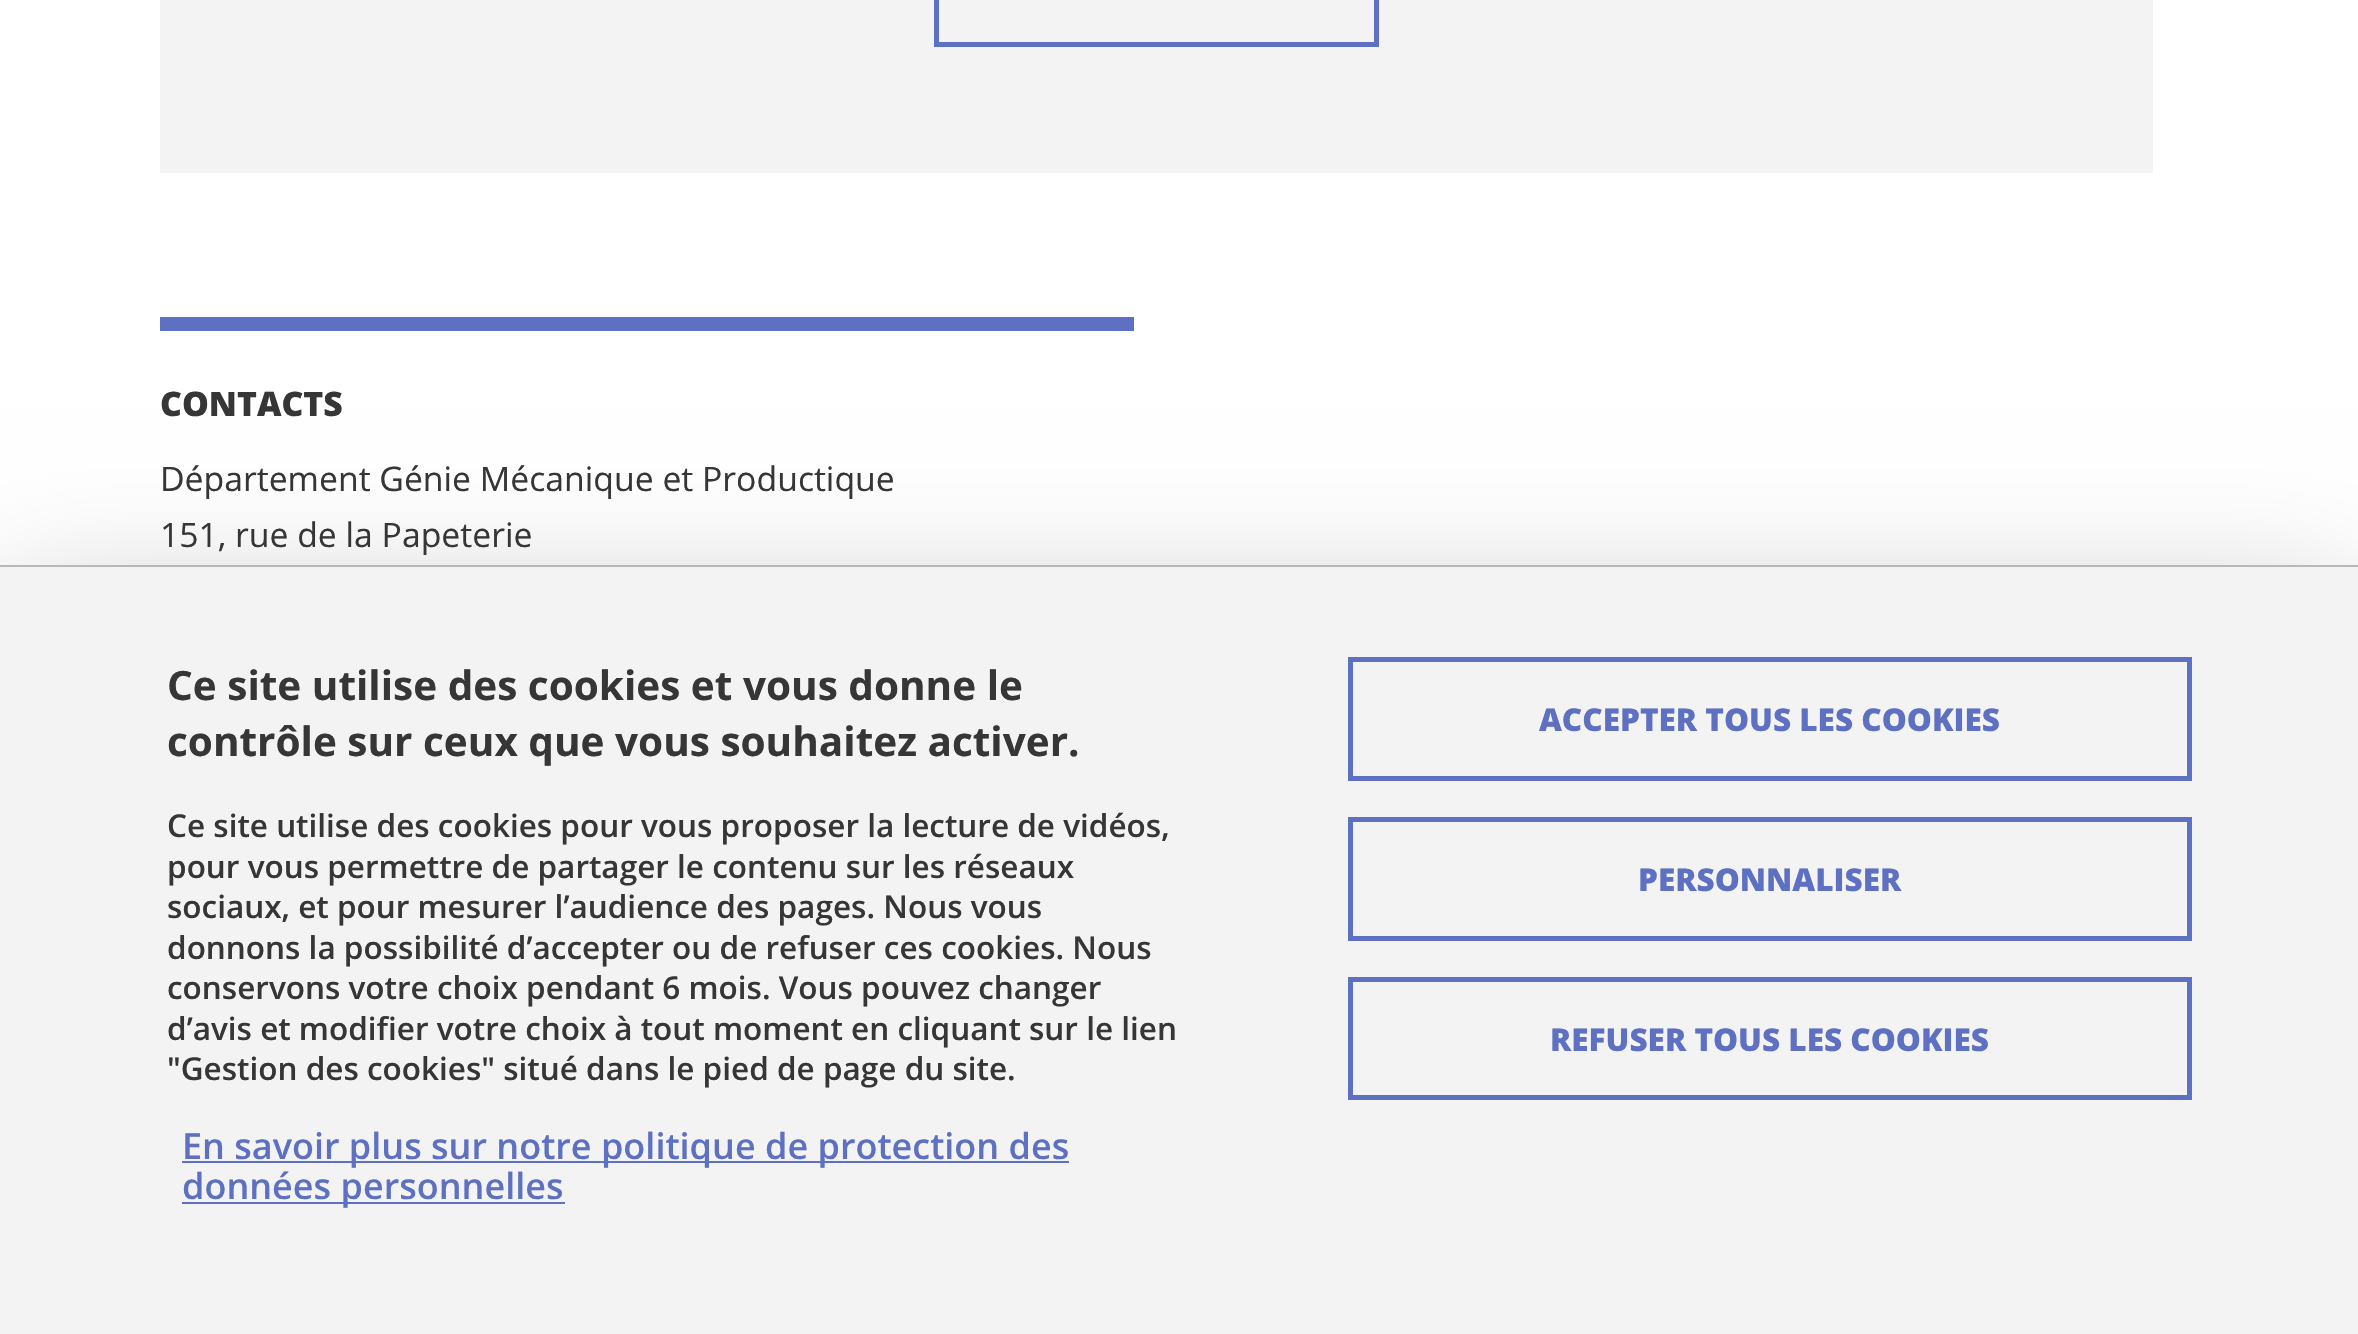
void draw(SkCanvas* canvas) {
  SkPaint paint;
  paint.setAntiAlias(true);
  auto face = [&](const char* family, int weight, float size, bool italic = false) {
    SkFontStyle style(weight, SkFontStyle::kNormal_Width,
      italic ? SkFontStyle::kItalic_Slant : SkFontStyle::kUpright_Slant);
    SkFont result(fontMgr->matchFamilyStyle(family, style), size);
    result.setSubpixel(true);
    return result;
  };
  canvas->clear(0xffffffff);
  paint.setColor(0xfff3f3f3);
  canvas->drawRect(SkRect::MakeXYWH(160, 0, 1993, 173), paint);
  paint.setStroke(true);
  paint.setStrokeWidth(5);
  paint.setColor(0xff5d70c1);
  canvas->drawRect(SkRect::MakeXYWH(936.5f, -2.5f, 440, 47), paint);
  paint.setStroke(false);
  canvas->drawRect(SkRect::MakeXYWH(160, 317, 974, 14), paint);
  paint.setColor(0x40000000);
  paint.setMaskFilter(SkMaskFilter::MakeBlur(kNormal_SkBlurStyle, 67.5f));
  canvas->drawRect(SkRect::MakeXYWH(0, 610, 2358, 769), paint);
  paint.setMaskFilter(nullptr);
  {
    const struct { float x, y, w, h; SkColor color; } items[] = {
      {0, 567, 2358, 767, 0xfff3f3f3},
      {0, 565, 2358, 2, 0xffb8b8b8},
      {182, 1161, 887, 2, 0xff5d70c1},
      {182, 1202, 383, 2, 0xff5d70c1},
    };
    for (auto [x, y, w, h, color] : items) {
      paint.setColor(color);
      canvas->drawRect(SkRect::MakeXYWH(x, y, w, h), paint);
    }
  }
  paint.setStroke(true);
  canvas->drawRect(SkRect::MakeXYWH(1350.5f, 659.5f, 839, 119), paint);
  canvas->drawRect(SkRect::MakeXYWH(1350.5f, 819.5f, 839, 119), paint);
  canvas->drawRect(SkRect::MakeXYWH(1350.5f, 979.5f, 839, 118), paint);
  auto f0 = face("Open Sans", 800, 33.75f);
  paint.setStroke(false);
  paint.setColor(0xff363636);
  canvas->drawString("CONTACTS", 160, 416, f0, paint);
  auto f1 = face("Open Sans", 400, 33.75f);
  canvas->drawString("Département Génie Mécanique et Productique", 160, 491, f1, paint);
  canvas->drawString("151, rue de la Papeterie", 160, 547, f1, paint);
  auto f2 = face("Open Sans", 700, 40.5f);
  canvas->drawString("Ce site utilise des cookies et vous donne le", 167, 700, f2, paint);
  canvas->drawString("contrôle sur ceux que vous souhaitez activer.", 167, 756, f2, paint);
  auto f3 = face("Open Sans", 600, 31.5f);
  {
    const struct { const char* s; float x, y; } items[] = {
      {"Ce site utilise des cookies pour vous proposer la lecture de vidéos,", 167, 837},
      {"pour vous permettre de partager le contenu sur les réseaux", 167, 878},
      {"sociaux, et pour mesurer l’audience des pages. Nous vous", 167, 918},
      {"donnons la possibilité d’accepter ou de refuser ces cookies. Nous", 167, 959},
      {"conservons votre choix pendant 6 mois. Vous pouvez changer", 167, 999},
      {"d’avis et modifier votre choix à tout moment en cliquant sur le lien", 167, 1040},
      {"\"Gestion des cookies\" situé dans le pied de page du site.", 167, 1080},
    };
    for (auto [s, x, y] : items) {
      canvas->drawString(s, x, y, f3, paint);
    }
  }
  auto f4 = face("Open Sans", 600, 36);
  paint.setColor(0xff5d70c1);
  canvas->drawString("En savoir plus sur notre politique de protection des", 182, 1159, f4, paint);
  canvas->drawString("données personnelles", 182, 1199, f4, paint);
  auto f5 = face("Open Sans", 800, 31.5f);
  {
    const struct { const char* s; float x, y; } items[] = {
      {"ACCEPTER TOUS LES COOKIES", 1539, 731},
      {"PERSONNALISER", 1638, 891},
      {"REFUSER TOUS LES COOKIES", 1550, 1051},
    };
    for (auto [s, x, y] : items) {
      canvas->drawString(s, x, y, f5, paint);
    }
  }
}
